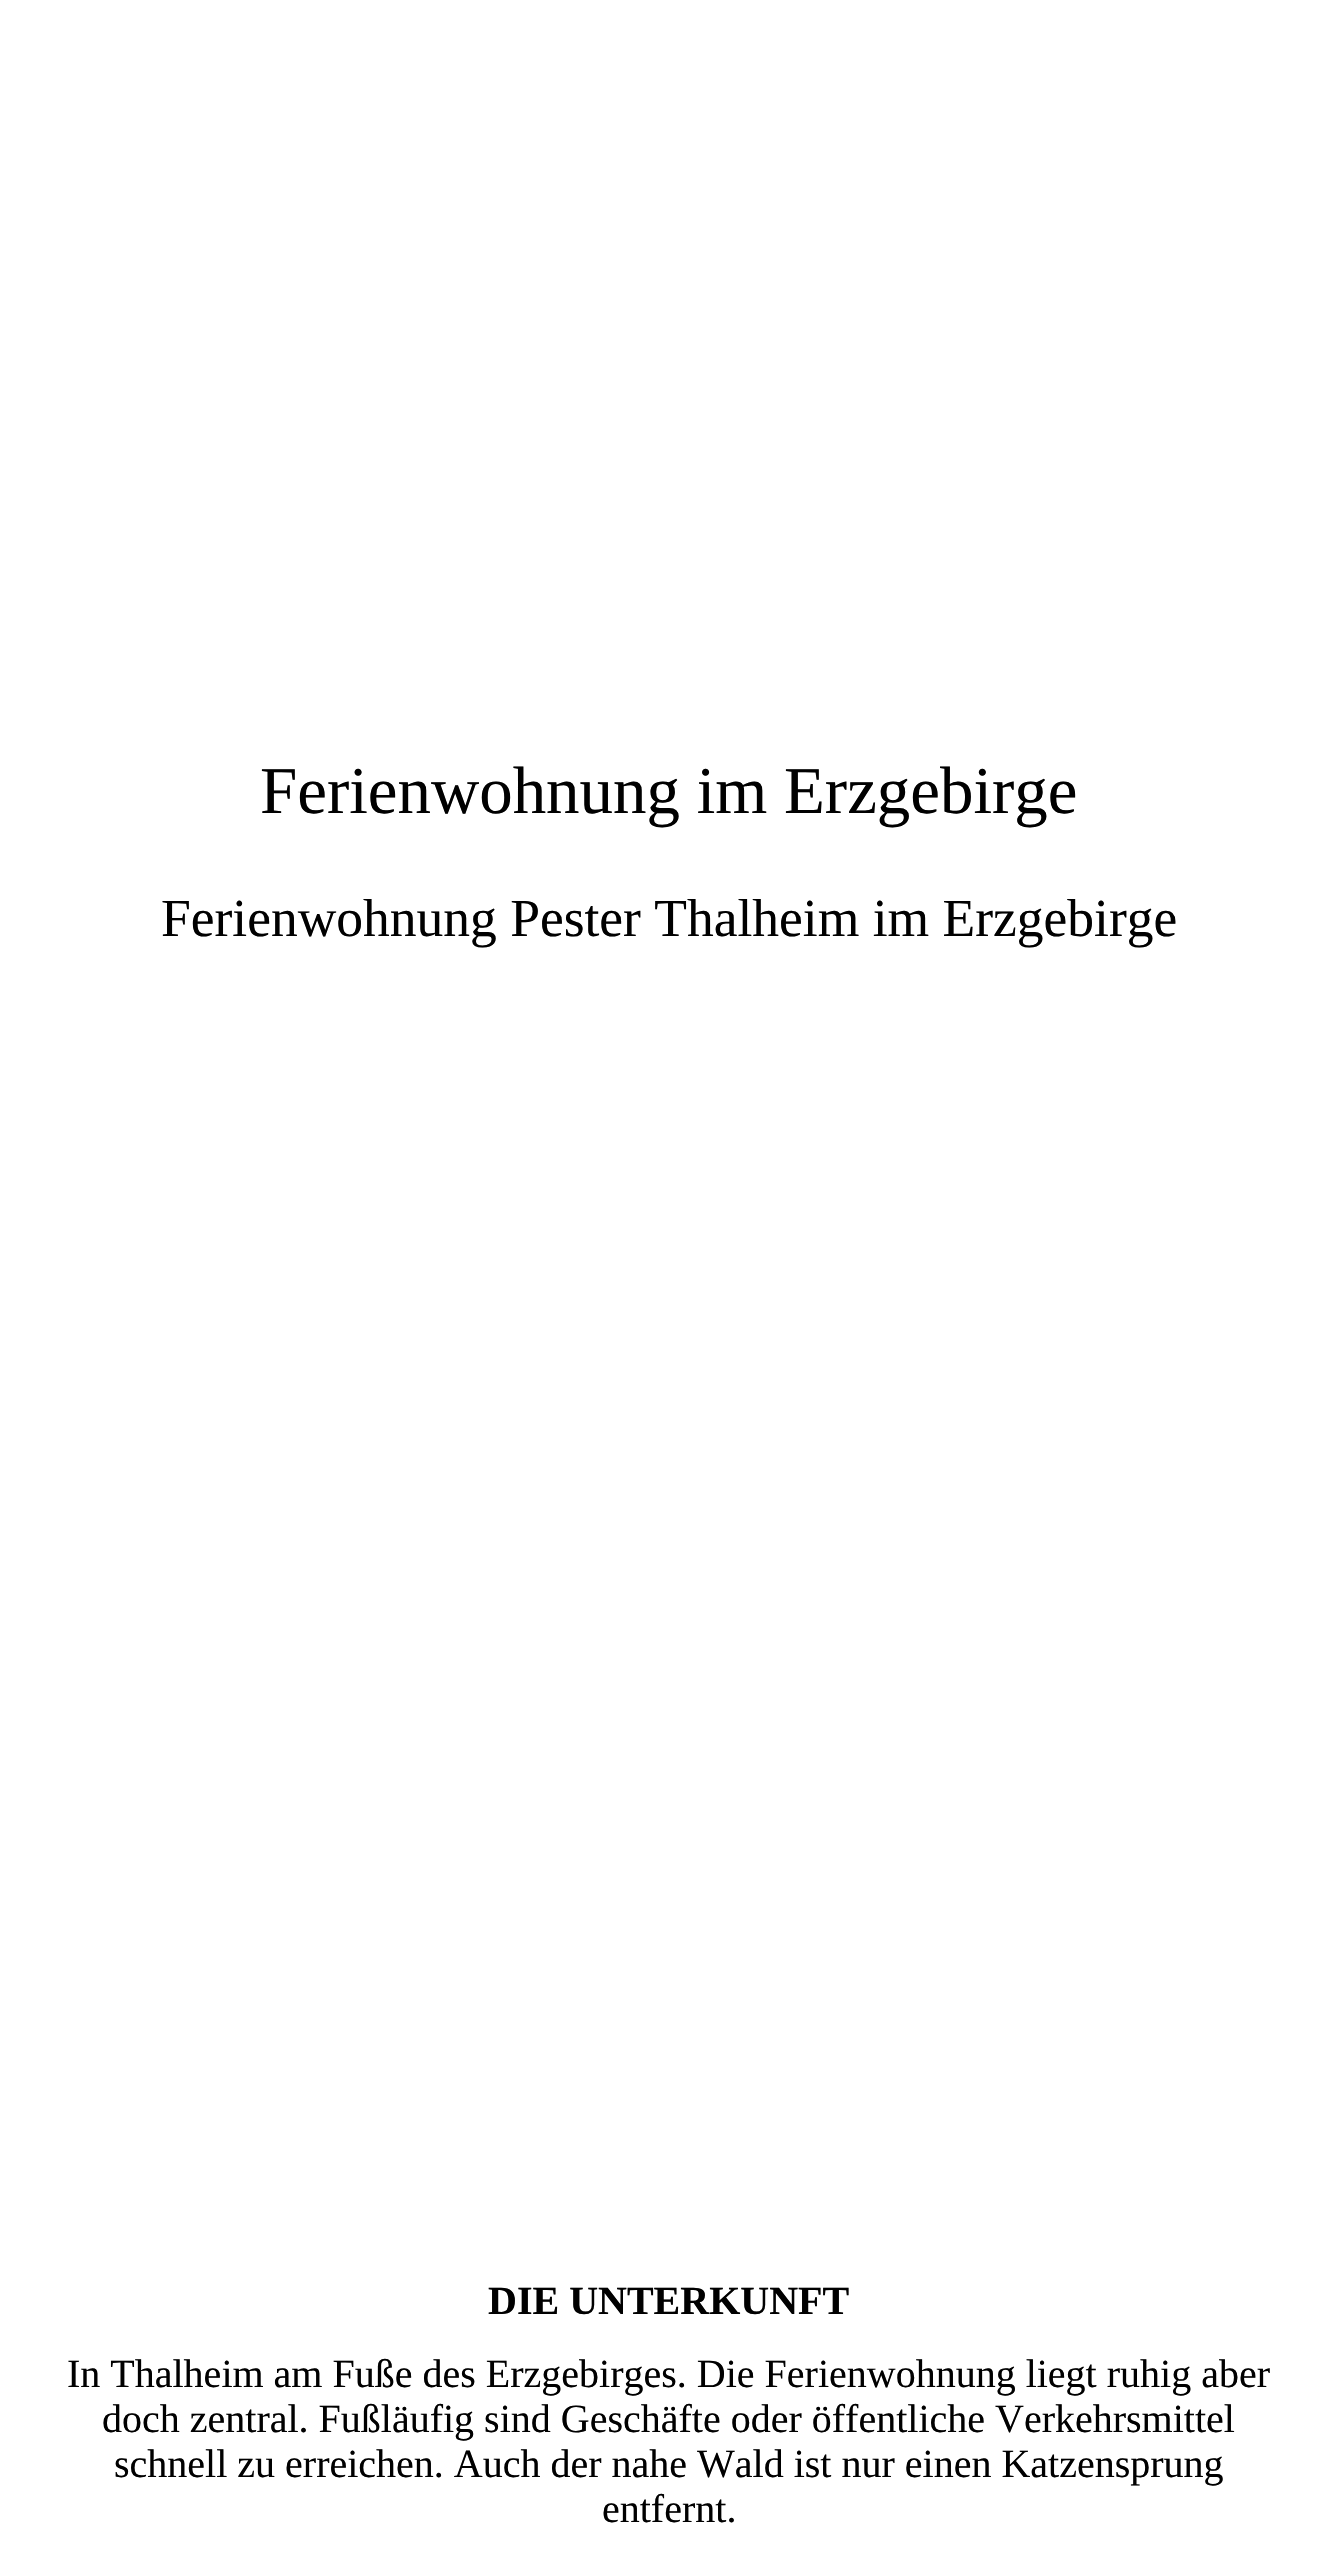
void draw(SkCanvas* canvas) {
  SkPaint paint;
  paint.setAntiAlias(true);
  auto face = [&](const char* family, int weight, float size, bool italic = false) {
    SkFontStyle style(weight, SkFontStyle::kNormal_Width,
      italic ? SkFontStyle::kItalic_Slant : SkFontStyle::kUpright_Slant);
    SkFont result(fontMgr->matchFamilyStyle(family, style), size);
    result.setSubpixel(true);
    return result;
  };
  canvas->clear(0xffffffff);
  auto f0 = face("Liberation Serif", 400, 66.9f);
  paint.setColor(0xff000000);
  canvas->drawString("Ferienwohnung im Erzgebirge", 260, 813, f0, paint);
  auto f1 = face("Liberation Serif", 400, 53.5f);
  canvas->drawString("Ferienwohnung Pester Thalheim im Erzgebirge", 161, 936, f1, paint);
  auto f2 = face("Liberation Serif", 700, 40);
  canvas->drawString("DIE UNTERKUNFT", 488, 2314, f2, paint);
  auto f3 = face("Liberation Serif", 400, 40);
  {
    const struct { const char* s; float x, y; } items[] = {
      {"In Thalheim am Fuße des Erzgebirges. Die Ferienwohnung liegt ruhig aber", 67, 2387},
      {"doch zentral. Fußläufig sind Geschäfte oder öffentliche Verkehrsmittel", 102, 2432},
      {"schnell zu erreichen. Auch der nahe Wald ist nur einen Katzensprung", 114, 2477},
      {"entfernt.", 602, 2522},
    };
    for (auto [s, x, y] : items) {
      canvas->drawString(s, x, y, f3, paint);
    }
  }
}
